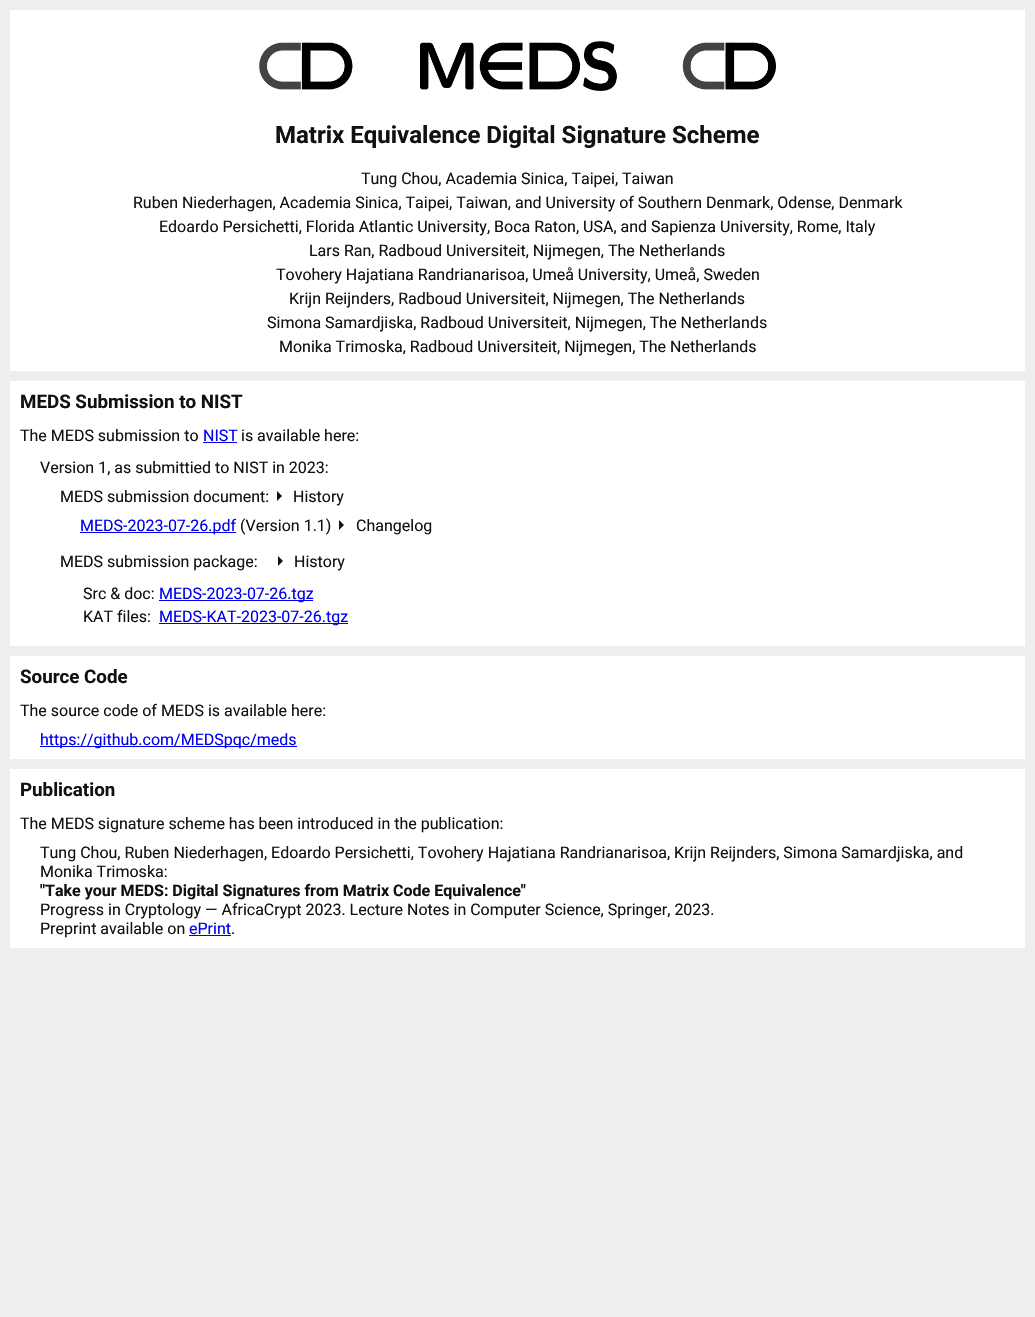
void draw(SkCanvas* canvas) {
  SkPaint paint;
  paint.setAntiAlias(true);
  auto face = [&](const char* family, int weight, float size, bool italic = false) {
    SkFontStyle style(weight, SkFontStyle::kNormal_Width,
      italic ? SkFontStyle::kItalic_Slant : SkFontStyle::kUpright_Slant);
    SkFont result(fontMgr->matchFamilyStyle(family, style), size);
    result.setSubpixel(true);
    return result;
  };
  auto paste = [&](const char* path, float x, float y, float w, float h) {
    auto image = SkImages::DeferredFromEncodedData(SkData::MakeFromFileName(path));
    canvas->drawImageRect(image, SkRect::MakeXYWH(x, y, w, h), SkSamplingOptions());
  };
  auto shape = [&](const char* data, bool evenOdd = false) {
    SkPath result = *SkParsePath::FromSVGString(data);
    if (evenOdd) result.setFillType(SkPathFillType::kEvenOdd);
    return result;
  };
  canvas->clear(0xffeeeeee);
  paint.setColor(0xffffffff);
  canvas->drawRect(SkRect::MakeXYWH(10, 10, 1015, 361), paint);
  paste("img/1.png", 259, 41, 517, 50);
  canvas->drawRect(SkRect::MakeXYWH(10, 381, 1015, 265), paint);
  paint.setColor(0xff0000ee);
  canvas->drawRect(SkRect::MakeXYWH(203, 442, 34, 1), paint);
  paint.setColor(0xff111111);
  canvas->drawPath(shape("M277 501V491L282 496Z"), paint);
  paint.setColor(0xff0000ee);
  canvas->drawRect(SkRect::MakeXYWH(80, 532, 156, 1), paint);
  paint.setColor(0xff111111);
  canvas->drawPath(shape("M339 530V520L344 525Z"), paint);
  canvas->drawPath(shape("M278 566V556L283 561Z"), paint);
  {
    const struct { float x, y, w, h; SkColor color; } items[] = {
      {159, 600, 154, 1, 0xff0000ee},
      {159, 623, 189, 1, 0xff0000ee},
      {10, 656, 1015, 103, 0xffffffff},
      {40, 746, 257, 1, 0xff0000ee},
      {10, 769, 1015, 179, 0xffffffff},
      {189, 935, 42, 1, 0xff0000ee},
    };
    for (auto [x, y, w, h, color] : items) {
      paint.setColor(color);
      canvas->drawRect(SkRect::MakeXYWH(x, y, w, h), paint);
    }
  }
  auto f0 = face("Roboto", 700, 24);
  paint.setColor(0xff111111);
  canvas->drawString("Matrix Equivalence Digital Signature Scheme", 275, 143, f0, paint);
  auto f1 = face("Roboto", 400, 16);
  {
    const struct { const char* s; float x, y; } items[] = {
      {"Tung Chou, Academia Sinica, Taipei, Taiwan", 361, 184},
      {"Ruben Niederhagen, Academia Sinica, Taipei, Taiwan, and University of Southern Denmark, Odense, Denmark", 133, 208},
      {"Edoardo Persichetti, Florida Atlantic University, Boca Raton, USA, and Sapienza University, Rome, Italy", 159, 232},
      {"Lars Ran, Radboud Universiteit, Nijmegen, The Netherlands", 309, 256},
      {"Tovohery Hajatiana Randrianarisoa, Umeå University, Umeå, Sweden", 276, 280},
      {"Krijn Reijnders, Radboud Universiteit, Nijmegen, The Netherlands", 289, 304},
      {"Simona Samardjiska, Radboud Universiteit, Nijmegen, The Netherlands", 267, 328},
      {"Monika Trimoska, Radboud Universiteit, Nijmegen, The Netherlands", 279, 352},
    };
    for (auto [s, x, y] : items) {
      canvas->drawString(s, x, y, f1, paint);
    }
  }
  auto f2 = face("Roboto", 700, 18.75f);
  canvas->drawString("MEDS Submission to NIST", 20, 408, f2, paint);
  canvas->drawString("The MEDS submission to", 20, 441, f1, paint);
  paint.setColor(0xff0000ee);
  canvas->drawString("NIST", 203, 441, f1, paint);
  paint.setColor(0xff111111);
  {
    const struct { const char* s; float x, y; } items[] = {
      {"is available here:", 241, 441},
      {"Version 1, as submittied to NIST in 2023:", 40, 473},
      {"MEDS submission document:", 60, 502},
      {"History", 293, 502},
    };
    for (auto [s, x, y] : items) {
      canvas->drawString(s, x, y, f1, paint);
    }
  }
  paint.setColor(0xff0000ee);
  canvas->drawString("MEDS-2023-07-26.pdf", 80, 531, f1, paint);
  paint.setColor(0xff111111);
  {
    const struct { const char* s; float x, y; } items[] = {
      {"(Version 1.1)", 240, 531},
      {"Changelog", 356, 531},
      {"MEDS submission package:", 60, 567},
      {"History", 294, 567},
      {"Src & doc:", 83, 599},
    };
    for (auto [s, x, y] : items) {
      canvas->drawString(s, x, y, f1, paint);
    }
  }
  paint.setColor(0xff0000ee);
  canvas->drawString("MEDS-2023-07-26.tgz", 159, 599, f1, paint);
  paint.setColor(0xff111111);
  canvas->drawString("KAT files:", 83, 622, f1, paint);
  paint.setColor(0xff0000ee);
  canvas->drawString("MEDS-KAT-2023-07-26.tgz", 159, 622, f1, paint);
  paint.setColor(0xff111111);
  canvas->drawString("Source Code", 20, 683, f2, paint);
  canvas->drawString("The source code of MEDS is available here:", 20, 716, f1, paint);
  paint.setColor(0xff0000ee);
  canvas->drawString("https://github.com/MEDSpqc/meds", 40, 745, f1, paint);
  paint.setColor(0xff111111);
  canvas->drawString("Publication", 20, 796, f2, paint);
  {
    const struct { const char* s; float x, y; } items[] = {
      {"The MEDS signature scheme has been introduced in the publication:", 20, 829},
      {"Tung Chou, Ruben Niederhagen, Edoardo Persichetti, Tovohery Hajatiana Randrianarisoa, Krijn Reijnders, Simona Samardjiska, and", 40, 858},
      {"Monika Trimoska:", 40, 877},
    };
    for (auto [s, x, y] : items) {
      canvas->drawString(s, x, y, f1, paint);
    }
  }
  auto f3 = face("Roboto", 700, 16);
  canvas->drawString("\"Take your MEDS: Digital Signatures from Matrix Code Equivalence\"", 40, 896, f3, paint);
  canvas->drawString("Progress in Cryptology — AfricaCrypt 2023. Lecture Notes in Computer Science, Springer, 2023.", 40, 915, f1, paint);
  canvas->drawString("Preprint available on", 40, 934, f1, paint);
  paint.setColor(0xff0000ee);
  canvas->drawString("ePrint", 189, 934, f1, paint);
  paint.setColor(0xff111111);
  canvas->drawString(".", 231, 934, f1, paint);
}
